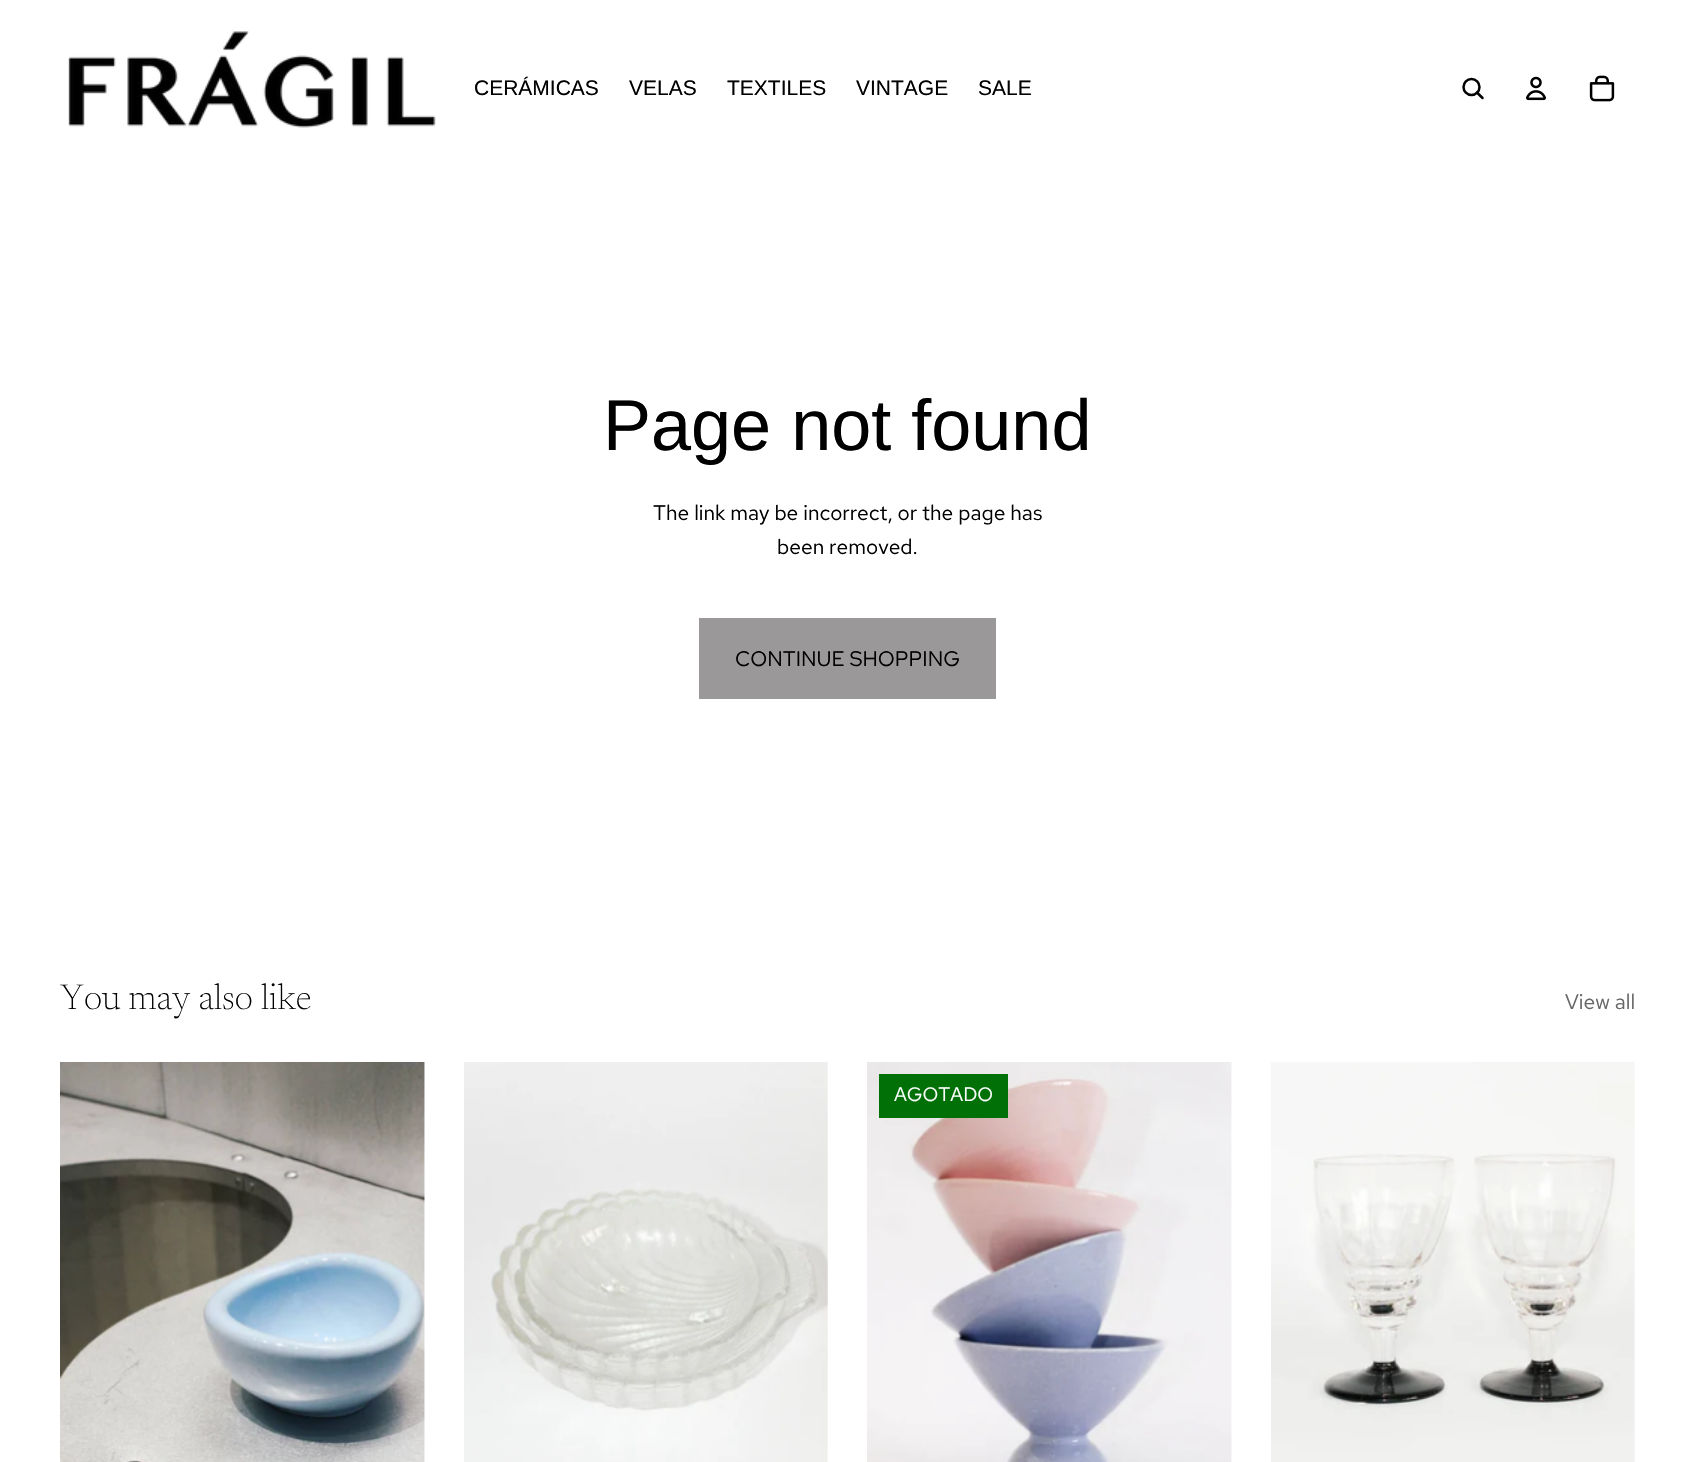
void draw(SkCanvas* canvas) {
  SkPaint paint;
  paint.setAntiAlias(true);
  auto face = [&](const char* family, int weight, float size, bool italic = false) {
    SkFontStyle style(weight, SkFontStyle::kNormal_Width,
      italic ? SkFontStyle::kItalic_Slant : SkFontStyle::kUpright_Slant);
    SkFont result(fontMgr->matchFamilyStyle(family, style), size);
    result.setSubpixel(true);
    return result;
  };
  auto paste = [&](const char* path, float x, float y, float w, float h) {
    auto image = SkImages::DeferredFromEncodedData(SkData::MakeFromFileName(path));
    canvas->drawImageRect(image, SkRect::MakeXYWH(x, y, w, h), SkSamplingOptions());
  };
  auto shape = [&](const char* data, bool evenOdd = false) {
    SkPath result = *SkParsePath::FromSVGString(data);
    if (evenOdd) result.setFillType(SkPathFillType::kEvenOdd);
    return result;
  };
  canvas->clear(0xffffffff);
  paste("img/1.png", 68, 31, 368, 97);
  paint.setStroke(true);
  paint.setStrokeWidth(2.5f);
  paint.setColor(0xff000000);
  canvas->drawCircle(1471.5f, 87, 8, paint);
  paint.setStrokeCap(SkPaint::kRound_Cap);
  paint.setStrokeJoin(SkPaint::kRound_Join);
  canvas->drawPath(shape("M1477 92.5L1482.5 98"), paint);
  paste("img/2.png", 1526, 76, 20, 25);
  paste("img/3.png", 1589, 75, 26, 27);
  paint.setStroke(false);
  paint.setColor(0xff9a9898);
  canvas->drawRect(SkRect::MakeXYWH(699, 618, 297, 81), paint);
  paste("img/4.png", 60, 1062, 365, 400);
  paste("img/5.png", 464, 1062, 364, 400);
  paste("img/6.png", 867, 1062, 365, 400);
  paint.setColor(0xff007007);
  canvas->drawRect(SkRect::MakeXYWH(879, 1074, 129, 44), paint);
  paste("img/7.png", 1271, 1062, 364, 400);
  auto f0 = face("Liberation Sans", 400, 21);
  paint.setColor(0xff000000);
  {
    const struct { const char* s; float x, y; } items[] = {
      {"CERÁMICAS", 474, 95},
      {"VELAS", 629, 95},
      {"TEXTILES", 727, 95},
      {"VINTAGE", 856, 95},
      {"SALE", 978, 95},
    };
    for (auto [s, x, y] : items) {
      canvas->drawString(s, x, y, f0, paint);
    }
  }
  auto f1 = face("Liberation Sans", 400, 72);
  canvas->drawString("Page not found", 603, 450, f1, paint);
  auto f2 = face("Red Hat Text", 400, 21);
  {
    const struct { const char* s; float x, y; } items[] = {
      {"The link may be incorrect, or the page has", 653, 520},
      {"been removed.", 777, 554},
      {"CONTINUE SHOPPING", 735, 666},
    };
    for (auto [s, x, y] : items) {
      canvas->drawString(s, x, y, f2, paint);
    }
  }
  auto f3 = face("Newsreader", 200, 36);
  canvas->drawString("You may also like", 60, 1009, f3, paint);
  paint.setColor(0xff666666);
  canvas->drawString("View all", 1565, 1009, f2, paint);
  auto f4 = face("Red Hat Text", 400, 19.5f);
  paint.setColor(0xffffffff);
  canvas->drawString("AGOTADO", 894, 1101, f4, paint);
}
